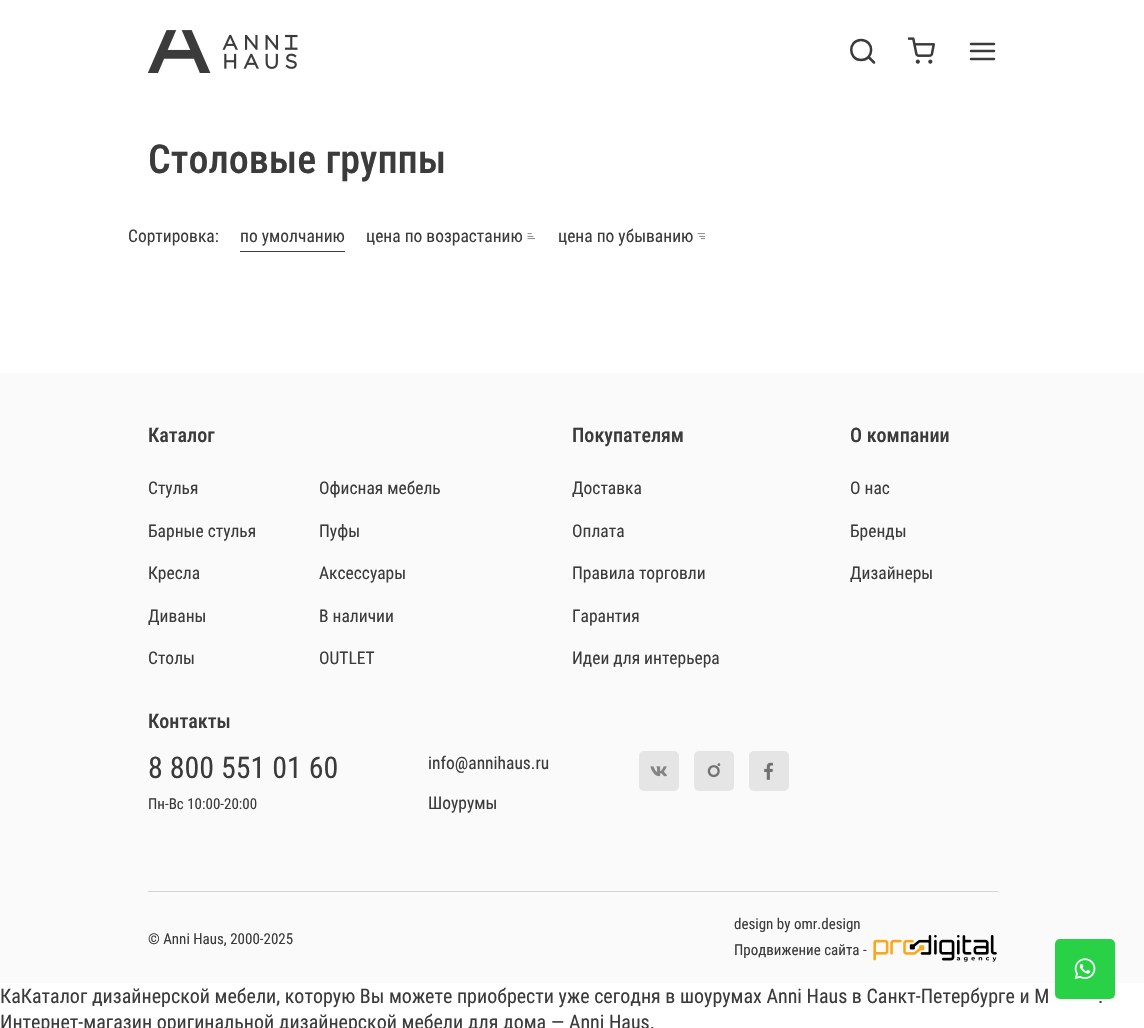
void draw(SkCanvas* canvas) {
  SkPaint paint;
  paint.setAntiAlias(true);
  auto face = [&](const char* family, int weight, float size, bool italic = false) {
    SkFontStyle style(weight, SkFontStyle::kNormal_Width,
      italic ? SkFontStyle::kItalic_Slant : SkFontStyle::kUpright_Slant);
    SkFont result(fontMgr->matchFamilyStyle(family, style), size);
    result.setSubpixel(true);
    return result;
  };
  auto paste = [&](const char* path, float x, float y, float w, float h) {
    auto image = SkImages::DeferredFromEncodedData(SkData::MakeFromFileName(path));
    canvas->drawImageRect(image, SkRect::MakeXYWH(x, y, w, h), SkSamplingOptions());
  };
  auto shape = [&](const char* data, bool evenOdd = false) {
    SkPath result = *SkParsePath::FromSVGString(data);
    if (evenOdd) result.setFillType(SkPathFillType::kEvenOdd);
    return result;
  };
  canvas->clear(0xffffffff);
  paste("img/1.png", 148, 30, 150, 43);
  paint.setStroke(true);
  paint.setStrokeWidth(2.5f);
  paint.setStrokeCap(SkPaint::kRound_Cap);
  paint.setStrokeJoin(SkPaint::kRound_Join);
  paint.setColor(0xff3b3b3b);
  canvas->drawPath(shape("M861 60C874.5 60 874.5 40 861 40C848 40 848 60 861 60ZM874 62.5L868.5 57"), paint);
  paste("img/2.png", 908, 37, 27, 27);
  canvas->drawPath(shape("M971 51H994M971 44H994M971 59H994"), paint);
  paint.setStroke(false);
  canvas->drawRect(SkRect::MakeXYWH(240, 251, 105, 1), paint);
  paste("img/3.png", 527, 233, 8, 7);
  paste("img/4.png", 697, 233, 8, 7);
  paint.setColor(0xfffafafa);
  canvas->drawRect(SkRect::MakeXYWH(0, 373, 1144, 610), paint);
  paint.setColor(0xffe5e5e5);
  canvas->drawRoundRect(SkRect::MakeXYWH(639, 751, 40, 40), 5, 5, paint);
  paste("img/5.png", 650, 766, 17, 11);
  canvas->drawRoundRect(SkRect::MakeXYWH(694, 751, 40, 40), 5, 5, paint);
  paste("img/6.png", 707, 763, 14, 15);
  canvas->drawRoundRect(SkRect::MakeXYWH(749, 751, 40, 40), 5, 5, paint);
  paste("img/7.png", 764, 762, 9, 18);
  paint.setColor(0xffd4d4d4);
  canvas->drawRect(SkRect::MakeXYWH(148, 891, 850, 1), paint);
  paste("img/8.png", 873, 935, 124, 27);
  paint.setColor(0xff28d146);
  canvas->drawRoundRect(SkRect::MakeXYWH(1055, 939, 60, 60), 5, 5, paint);
  paste("img/9.png", 1074, 958, 22, 22);
  auto f0 = face("Roboto Condensed", 500, 40);
  paint.setColor(0xff3b3b3b);
  canvas->drawString("Столовые группы", 148, 173, f0, paint);
  auto f1 = face("Roboto Condensed", 400, 17.5f);
  {
    const struct { const char* s; float x, y; } items[] = {
      {"Сортировка:", 128, 242},
      {"по умолчанию", 240, 242},
      {"цена по возрастанию", 366, 242},
      {"цена по убыванию", 558, 242},
    };
    for (auto [s, x, y] : items) {
      canvas->drawString(s, x, y, f1, paint);
    }
  }
  auto f2 = face("Roboto Condensed", 500, 20);
  canvas->drawString("Каталог", 148, 442, f2, paint);
  {
    const struct { const char* s; float x, y; } items[] = {
      {"Стулья", 148, 494},
      {"Офисная мебель", 319, 494},
      {"Барные стулья", 148, 537},
      {"Пуфы", 319, 537},
      {"Кресла", 148, 579},
      {"Аксессуары", 319, 579},
      {"Диваны", 148, 622},
      {"В наличии", 319, 622},
      {"Столы", 148, 664},
      {"OUTLET", 319, 664},
    };
    for (auto [s, x, y] : items) {
      canvas->drawString(s, x, y, f1, paint);
    }
  }
  canvas->drawString("Покупателям", 572, 442, f2, paint);
  {
    const struct { const char* s; float x, y; } items[] = {
      {"Доставка", 572, 494},
      {"Оплата", 572, 537},
      {"Правила торговли", 572, 579},
      {"Гарантия", 572, 622},
      {"Идеи для интерьера", 572, 664},
    };
    for (auto [s, x, y] : items) {
      canvas->drawString(s, x, y, f1, paint);
    }
  }
  canvas->drawString("О компании", 850, 442, f2, paint);
  {
    const struct { const char* s; float x, y; } items[] = {
      {"О нас", 850, 494},
      {"Бренды", 850, 537},
      {"Дизайнеры", 850, 579},
    };
    for (auto [s, x, y] : items) {
      canvas->drawString(s, x, y, f1, paint);
    }
  }
  canvas->drawString("Контакты", 148, 728, f2, paint);
  auto f3 = face("Roboto Condensed", 400, 30);
  canvas->drawString("8 800 551 01 60", 148, 778, f3, paint);
  auto f4 = face("Roboto Condensed", 400, 15);
  canvas->drawString("Пн-Вс 10:00-20:00", 148, 809, f4, paint);
  canvas->drawString("info@annihaus.ru", 428, 769, f1, paint);
  canvas->drawString("Шоурумы", 428, 809, f1, paint);
  {
    const struct { const char* s; float x, y; } items[] = {
      {"© Anni Haus, 2000-2025", 148, 944},
      {"design by omr.design", 734, 929},
      {"Продвижение сайта -", 734, 955},
    };
    for (auto [s, x, y] : items) {
      canvas->drawString(s, x, y, f4, paint);
    }
  }
  auto f5 = face("Roboto Condensed", 400, 20);
  {
    const struct { const char* s; float x, y; } items[] = {
      {"КаКаталог дизайнерской мебели, которую Вы можете приобрести уже сегодня в шоурумах Anni Haus в Санкт-Петербурге и М", 0, 1003},
      {".", 1098, 1003},
      {"Интернет-магазин оригинальной дизайнерской мебели для дома — Anni Haus.", 0, 1029},
    };
    for (auto [s, x, y] : items) {
      canvas->drawString(s, x, y, f5, paint);
    }
  }
}
